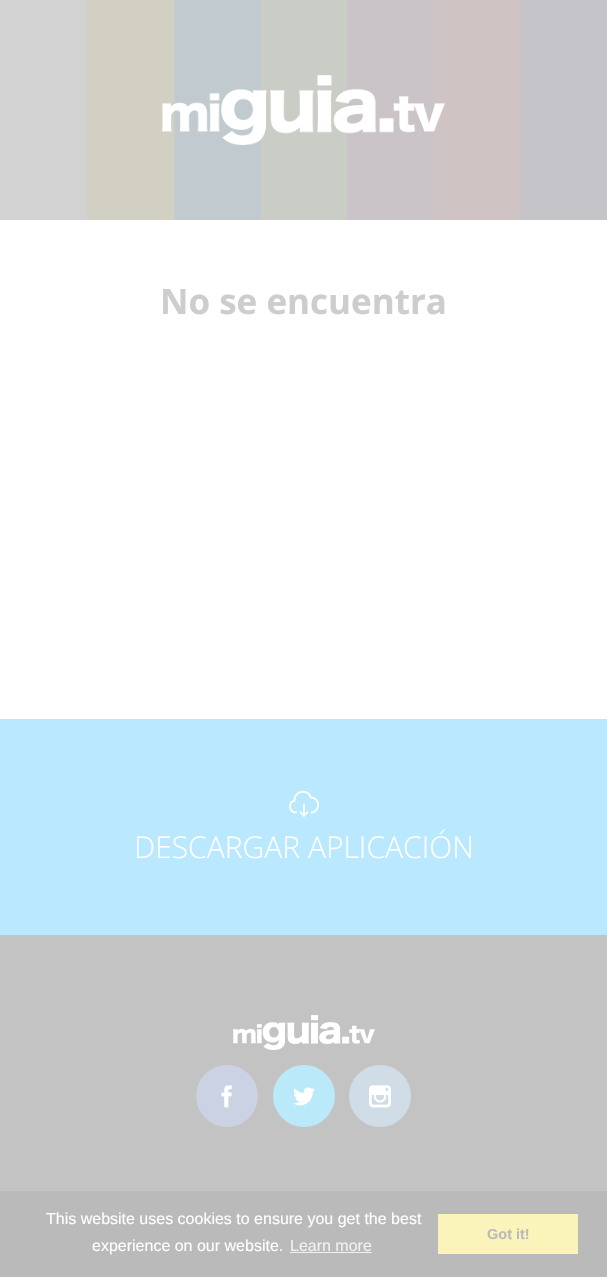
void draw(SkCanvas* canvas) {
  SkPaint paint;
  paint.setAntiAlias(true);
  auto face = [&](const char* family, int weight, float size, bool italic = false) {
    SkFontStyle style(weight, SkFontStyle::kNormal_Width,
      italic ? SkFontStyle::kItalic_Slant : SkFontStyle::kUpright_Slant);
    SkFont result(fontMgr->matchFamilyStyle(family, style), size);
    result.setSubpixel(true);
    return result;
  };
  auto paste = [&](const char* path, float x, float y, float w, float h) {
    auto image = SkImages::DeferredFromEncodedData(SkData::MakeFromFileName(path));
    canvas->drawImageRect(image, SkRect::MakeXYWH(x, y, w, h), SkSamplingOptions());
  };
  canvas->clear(0xffffffff);
  paint.setColor(0xffc3c3c3);
  canvas->drawRect(SkRect::MakeXYWH(0, 0, 607, 220), paint);
  paste("img/1.png", 0, 0, 607, 220);
  paste("img/2.png", 162, 75, 283, 70);
  paint.setColor(0xffbae9ff);
  canvas->drawRect(SkRect::MakeXYWH(0, 719, 607, 216), paint);
  paste("img/3.png", 289, 790, 30, 27);
  paint.setColor(0xffc3c3c3);
  canvas->drawRect(SkRect::MakeXYWH(0, 935, 607, 256), paint);
  paste("img/4.png", 233, 1015, 142, 35);
  paint.setColor(0xffcad2e3);
  canvas->drawCircle(227, 1096, 31, paint);
  paste("img/5.png", 221, 1085, 11, 23);
  paint.setColor(0xffbae9fa);
  canvas->drawCircle(304, 1096, 31, paint);
  paste("img/6.png", 293, 1087, 22, 19);
  paint.setColor(0xffd0dce6);
  canvas->drawCircle(380, 1096, 31, paint);
  paste("img/7.png", 369, 1085, 22, 23);
  {
    const struct { float x, y, w, h; SkColor color; } items[] = {
      {0, 1191, 607, 86, 0xffbababa},
      {290, 1252, 82, 1, 0xfff1f1f1},
      {438, 1214, 140, 40, 0xfffbf4ba},
    };
    for (auto [x, y, w, h, color] : items) {
      paint.setColor(color);
      canvas->drawRect(SkRect::MakeXYWH(x, y, w, h), paint);
    }
  }
  auto f0 = face("Open Sans", 700, 35);
  paint.setColor(0xffcdcdcd);
  canvas->drawString("No se encuentra", 160, 314, f0, paint);
  auto f1 = face("Open Sans", 300, 30);
  paint.setColor(0xffffffff);
  canvas->drawString("DESCARGAR APLICACIÓN", 134, 858, f1, paint);
  auto f2 = face("Liberation Sans", 400, 16);
  canvas->drawString("This website uses cookies to ensure you get the best", 46, 1224, f2, paint);
  canvas->drawString("experience on our website.", 92, 1251, f2, paint);
  paint.setColor(0xfff1f1f1);
  canvas->drawString("Learn more", 290, 1251, f2, paint);
  auto f3 = face("Liberation Sans", 700, 14.5f);
  paint.setColor(0xffbababa);
  canvas->drawString("Got it!", 487, 1239, f3, paint);
}
